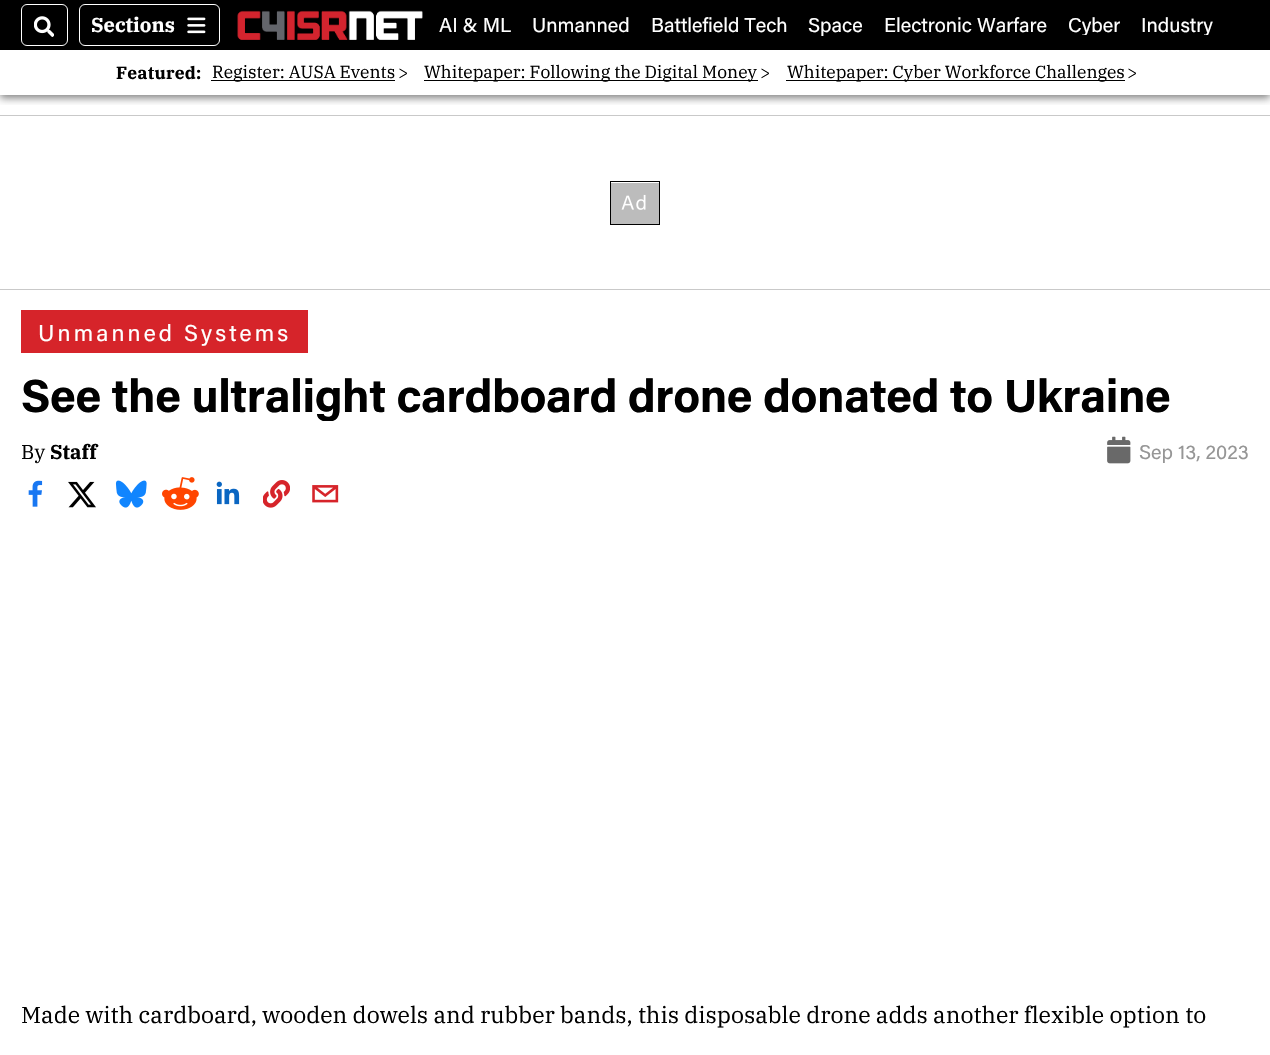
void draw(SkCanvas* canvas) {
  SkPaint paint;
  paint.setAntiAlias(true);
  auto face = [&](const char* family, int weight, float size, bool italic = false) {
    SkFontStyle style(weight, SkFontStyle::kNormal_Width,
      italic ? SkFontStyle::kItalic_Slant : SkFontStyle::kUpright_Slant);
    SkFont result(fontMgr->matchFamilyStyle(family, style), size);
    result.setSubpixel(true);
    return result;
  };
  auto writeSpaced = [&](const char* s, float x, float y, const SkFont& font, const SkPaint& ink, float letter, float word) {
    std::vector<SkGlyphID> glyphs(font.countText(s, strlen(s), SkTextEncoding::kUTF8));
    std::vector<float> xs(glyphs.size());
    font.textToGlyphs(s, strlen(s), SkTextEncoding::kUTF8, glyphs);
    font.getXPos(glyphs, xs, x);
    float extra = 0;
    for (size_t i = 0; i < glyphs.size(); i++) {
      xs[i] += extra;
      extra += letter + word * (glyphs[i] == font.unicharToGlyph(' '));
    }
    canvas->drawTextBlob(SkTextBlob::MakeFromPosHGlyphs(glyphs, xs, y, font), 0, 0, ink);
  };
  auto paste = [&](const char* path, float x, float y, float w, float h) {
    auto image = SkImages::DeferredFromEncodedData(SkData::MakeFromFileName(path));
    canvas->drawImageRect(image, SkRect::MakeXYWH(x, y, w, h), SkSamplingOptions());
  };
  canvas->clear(0xffffffff);
  canvas->save();
  canvas->clipRect(SkRect::MakeXYWH(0, 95, 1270, 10));
  paint.setColor(0x80000000);
  paint.setMaskFilter(SkMaskFilter::MakeBlur(kNormal_SkBlurStyle, 4));
  canvas->drawRect(SkRect::MakeXYWH(0, 3, 1270, 95), paint);
  paint.setMaskFilter(nullptr);
  canvas->restore();
  paint.setColor(0xff000000);
  canvas->drawRect(SkRect::MakeXYWH(0, 0, 1270, 50), paint);
  paint.setStroke(true);
  paint.setStrokeWidth(1);
  paint.setColor(0xffffffff);
  canvas->drawRoundRect(SkRect::MakeXYWH(21.5f, 4.5f, 46, 41), 5.5f, 5.5f, paint);
  paste("img/1.png", 34, 16, 20, 21);
  canvas->drawRoundRect(SkRect::MakeXYWH(79.5f, 4.5f, 140, 41), 5.5f, 5.5f, paint);
  paste("img/2.png", 187, 17, 19, 17);
  paste("img/3.png", 237, 10, 186, 30);
  paint.setStroke(false);
  {
    const struct { float x, y, w, h; SkColor color; } items[] = {
      {211, 80, 184, 1, 0xff000000},
      {424, 80, 334, 1, 0xff000000},
      {786, 80, 339, 1, 0xff000000},
      {0, 115, 1270, 1, 0xffc9c9c9},
      {611, 183, 48, 41, 0xffbcbcbc},
    };
    for (auto [x, y, w, h, color] : items) {
      paint.setColor(color);
      canvas->drawRect(SkRect::MakeXYWH(x, y, w, h), paint);
    }
  }
  paste("img/4.png", 621, 194, 25, 16);
  paint.setStroke(true);
  paint.setColor(0xff000000);
  canvas->drawRect(SkRect::MakeXYWH(610.5f, 181.5f, 49, 43), paint);
  paint.setStroke(false);
  paint.setColor(0xffc9c9c9);
  canvas->drawRect(SkRect::MakeXYWH(0, 289, 1270, 1), paint);
  paint.setColor(0xffd6242a);
  canvas->drawRect(SkRect::MakeXYWH(21, 310, 287, 43), paint);
  paste("img/5.png", 1107, 436, 24, 28);
  paste("img/6.png", 28, 480, 15, 27);
  paste("img/7.png", 68, 481, 28, 27);
  paste("img/8.png", 115, 480, 32, 28);
  paste("img/9.png", 162, 477, 37, 33);
  paste("img/10.png", 216, 481, 24, 24);
  paste("img/11.png", 263, 480, 27, 28);
  paste("img/12.png", 312, 485, 27, 18);
  auto f0 = face("IBM Plex Serif", 700, 20);
  paint.setColor(0xffffffff);
  canvas->drawString("Sections", 91, 32, f0, paint);
  auto f1 = face("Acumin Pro", 400, 20);
  {
    const struct { const char* s; float x, y; } items[] = {
      {"AI & ML", 439, 32},
      {"Unmanned", 532, 32},
      {"Battlefield Tech", 651, 32},
      {"Space", 808, 32},
      {"Electronic Warfare", 884, 32},
    };
    for (auto [s, x, y] : items) {
      canvas->drawString(s, x, y, f1, paint);
    }
  }
  canvas->save();
  canvas->clipRect(SkRect::MakeXYWH(439, 15, 794, 20));
  canvas->drawString("Cyber", 1068, 32, f1, paint);
  canvas->drawString("Industry", 1141, 32, f1, paint);
  canvas->restore();
  auto f2 = face("IBM Plex Serif", 700, 17.4f);
  paint.setColor(0xff000000);
  writeSpaced("Featured:", 116, 79, f2, paint, 0.25f, 0);
  auto f3 = face("IBM Plex Serif", 400, 17.4f);
  canvas->drawString("Register: AUSA Events", 212, 78, f3, paint);
  writeSpaced(">", 398, 78, f3, paint, -4, 0);
  canvas->drawString("Whitepaper: Following the Digital Money", 424, 78, f3, paint);
  writeSpaced(">", 760, 78, f3, paint, -4, 0);
  canvas->drawString("Whitepaper: Cyber Workforce Challenges", 787, 78, f3, paint);
  writeSpaced(">", 1127, 78, f3, paint, -4, 0);
  auto f4 = face("Acumin Pro", 400, 23);
  paint.setColor(0xffffffff);
  writeSpaced("Unmanned Systems", 38, 341, f4, paint, 3.1f, 0);
  canvas->save();
  canvas->clipRect(SkRect::MakeXYWH(21, 366, 1228, 55));
  auto f5 = face("Acumin Pro", 700, 46.4f);
  paint.setColor(0xff000000);
  writeSpaced("See the ultralight cardboard drone donated to Ukraine", 21, 412, f5, paint, -0.4f, 0);
  canvas->restore();
  auto f6 = face("IBM Plex Serif", 400, 20);
  canvas->drawString("By", 21, 459, f6, paint);
  canvas->drawString("Staff", 50, 459, f0, paint);
  paint.setColor(0xff969696);
  canvas->drawString("Sep 13, 2023", 1139, 459, f1, paint);
  auto f7 = face("IBM Plex Serif", 400, 23.05f);
  paint.setColor(0xff000000);
  canvas->drawString("Made with cardboard, wooden dowels and rubber bands, this disposable drone adds another flexible option to", 21, 1023, f7, paint);
}
